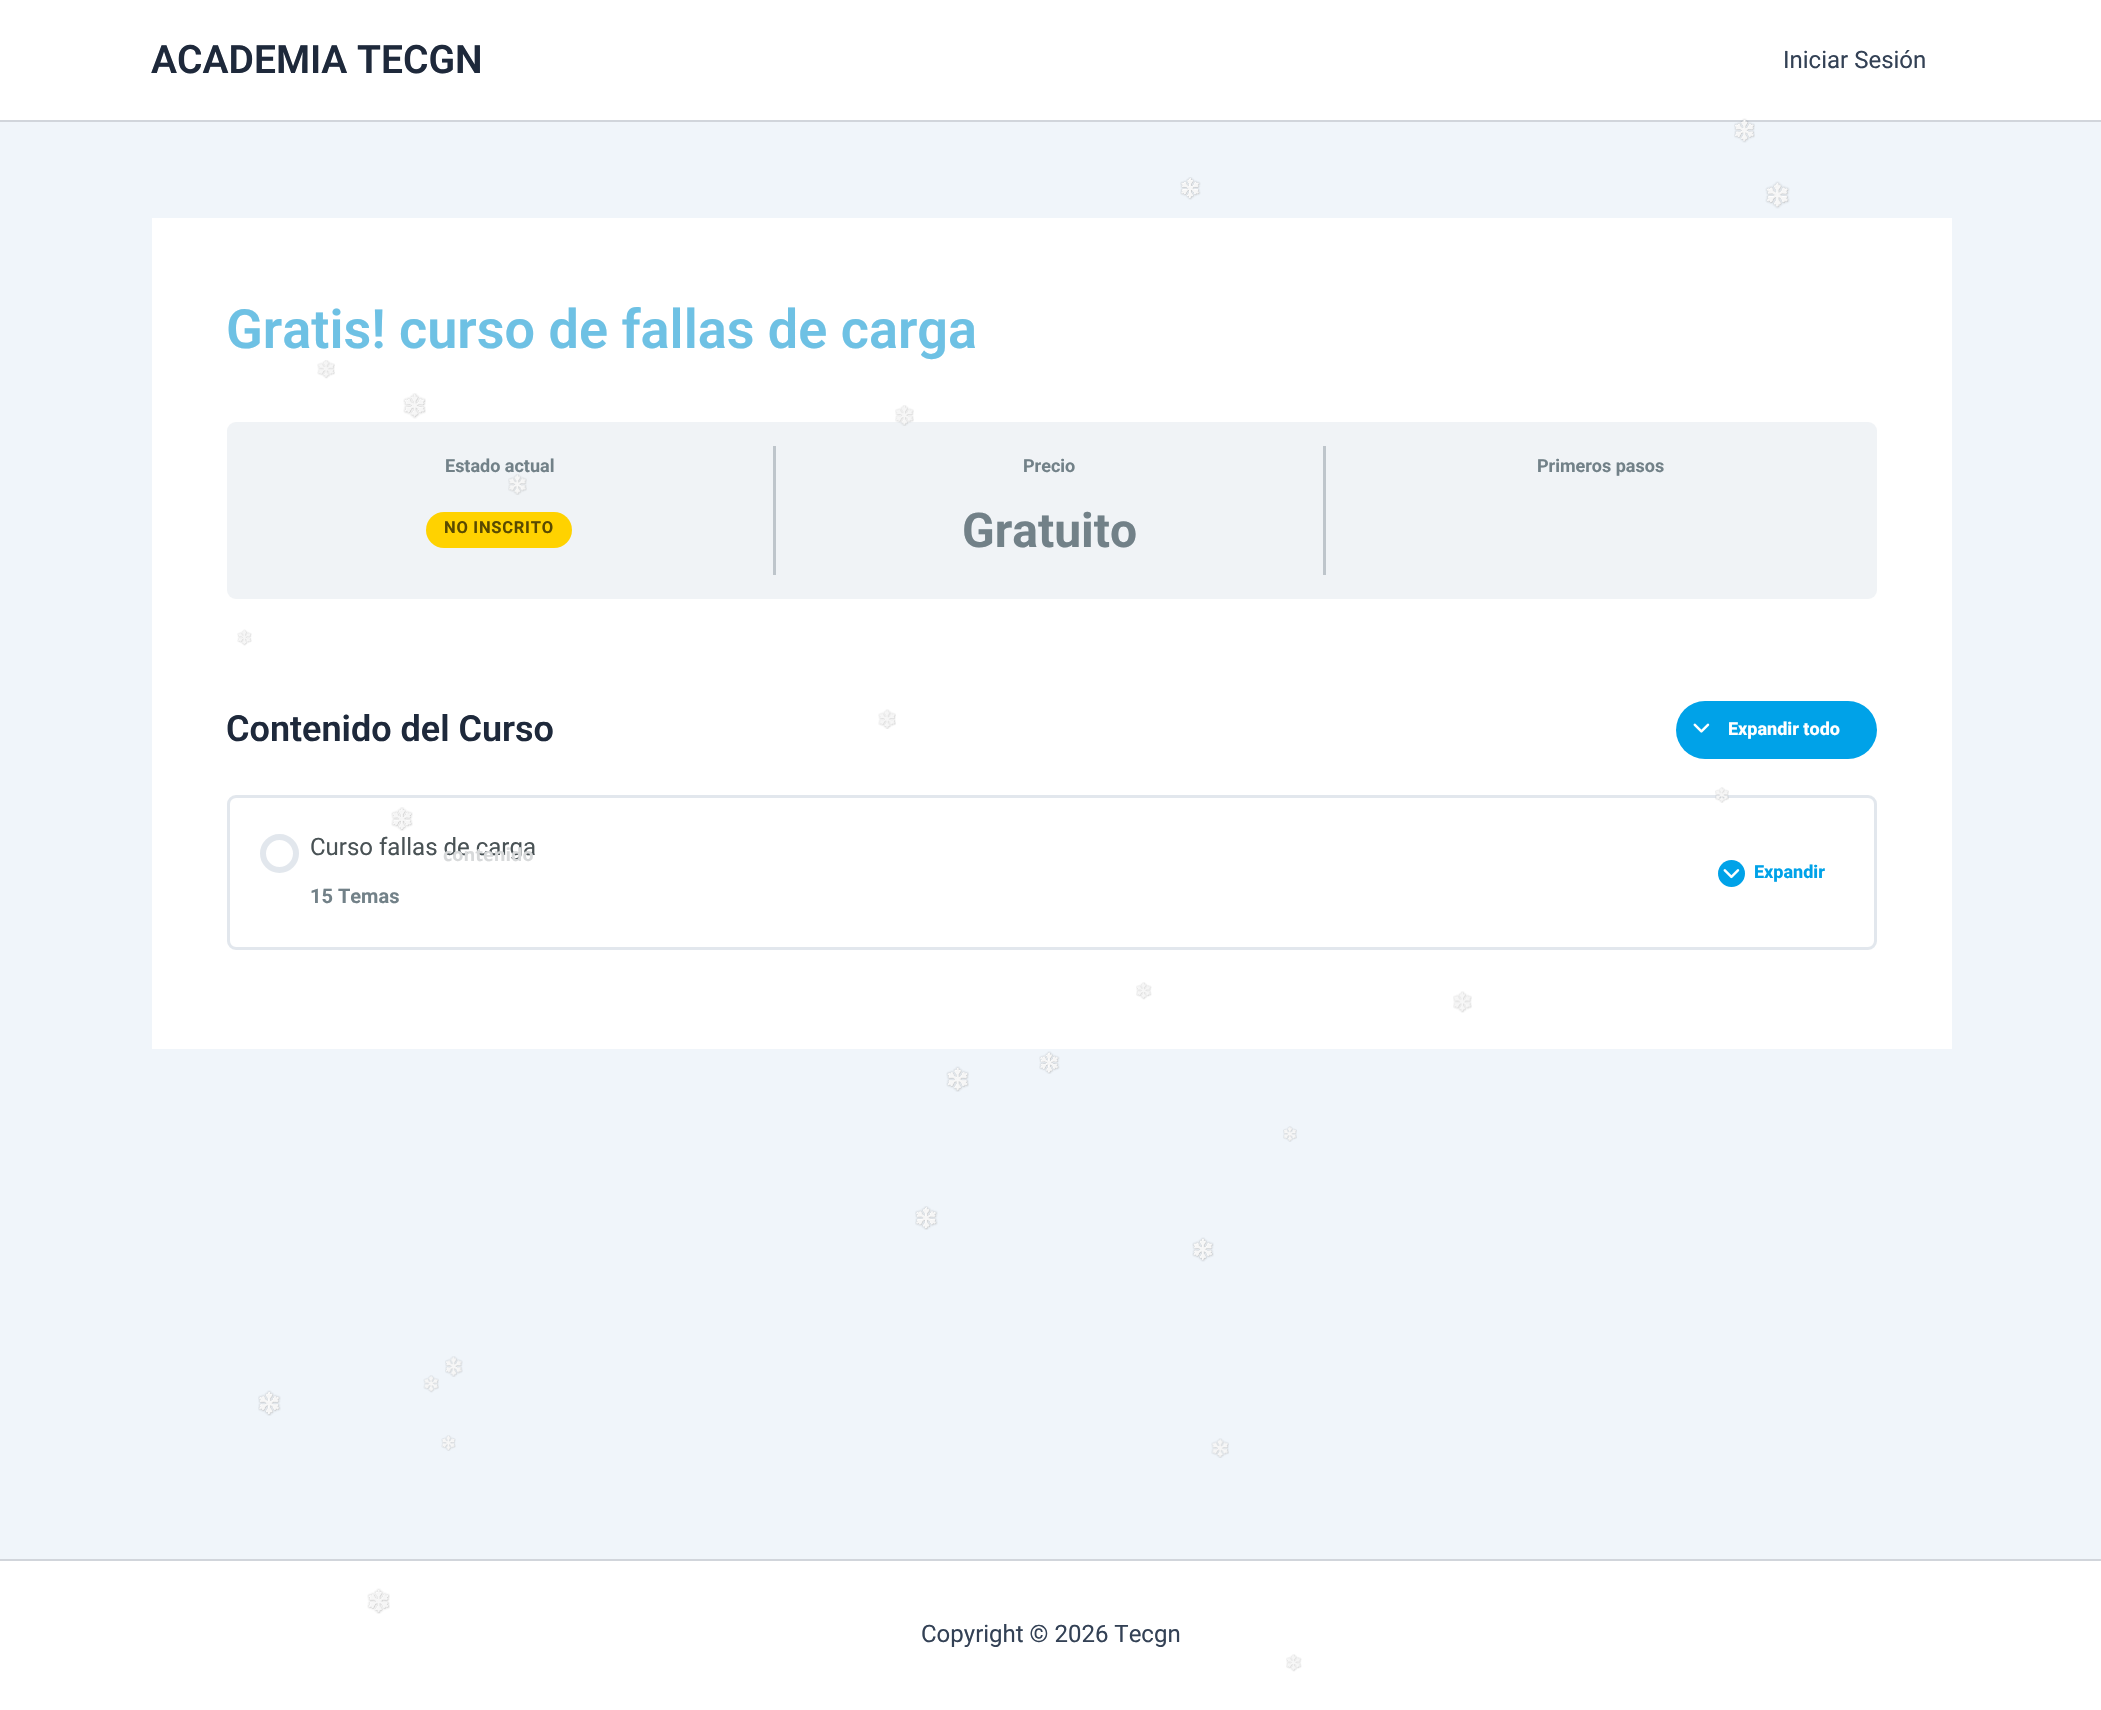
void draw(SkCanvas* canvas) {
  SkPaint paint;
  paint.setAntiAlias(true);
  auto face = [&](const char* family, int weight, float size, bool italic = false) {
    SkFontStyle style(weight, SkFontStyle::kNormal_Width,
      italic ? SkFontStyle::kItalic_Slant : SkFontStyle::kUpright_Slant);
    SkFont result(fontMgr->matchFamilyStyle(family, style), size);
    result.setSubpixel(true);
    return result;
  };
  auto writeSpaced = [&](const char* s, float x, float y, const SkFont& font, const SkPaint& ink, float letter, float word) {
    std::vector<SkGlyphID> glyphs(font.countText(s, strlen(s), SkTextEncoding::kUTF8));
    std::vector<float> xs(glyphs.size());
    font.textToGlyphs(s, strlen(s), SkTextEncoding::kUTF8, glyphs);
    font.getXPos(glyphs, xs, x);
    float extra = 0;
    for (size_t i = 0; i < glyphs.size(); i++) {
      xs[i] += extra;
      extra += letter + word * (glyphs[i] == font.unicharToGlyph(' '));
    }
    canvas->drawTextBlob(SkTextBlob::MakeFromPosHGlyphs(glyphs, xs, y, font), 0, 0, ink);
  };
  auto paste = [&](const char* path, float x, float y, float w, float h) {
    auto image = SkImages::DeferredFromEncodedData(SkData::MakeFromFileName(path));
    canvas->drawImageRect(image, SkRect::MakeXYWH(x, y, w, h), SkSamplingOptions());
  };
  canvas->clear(0xfff0f5fa);
  {
    const struct { float x, y, w, h; SkColor color; } items[] = {
      {0, 0, 2101, 120, 0xffffffff},
      {0, 120, 2101, 2, 0xffd1d5db},
      {152, 218, 1800, 831, 0xffffffff},
    };
    for (auto [x, y, w, h, color] : items) {
      paint.setColor(color);
      canvas->drawRect(SkRect::MakeXYWH(x, y, w, h), paint);
    }
  }
  paint.setColor(0xfff0f3f6);
  canvas->drawRoundRect(SkRect::MakeXYWH(227, 422, 1650, 177), 9, 9, paint);
  paint.setColor(0xffbec5cb);
  canvas->drawRect(SkRect::MakeXYWH(773, 446, 3, 129), paint);
  paint.setColor(0xffffd200);
  canvas->drawRoundRect(SkRect::MakeXYWH(426, 512, 146, 36), 18, 18, paint);
  paint.setColor(0xffbec5cb);
  canvas->drawRect(SkRect::MakeXYWH(1323, 446, 3, 129), paint);
  paint.setColor(0xff00a2e8);
  canvas->drawRoundRect(SkRect::MakeXYWH(1676, 701, 201, 58), 29, 29, paint);
  paste("img/1.png", 1693, 723, 17, 10);
  paint.setStroke(true);
  paint.setStrokeWidth(3);
  paint.setColor(0xffe2e7ed);
  canvas->drawRoundRect(SkRect::MakeXYWH(228.5f, 796.5f, 1647, 152), 7.5f, 7.5f, paint);
  paint.setStrokeWidth(6);
  canvas->drawCircle(279.5f, 853.5f, 16.5f, paint);
  paint.setStroke(false);
  paint.setColor(0xff00a2e8);
  canvas->drawCircle(1731.5f, 873.5f, 13.5f, paint);
  paste("img/2.png", 1723, 869, 17, 10);
  paint.setColor(0xffffffff);
  canvas->drawRect(SkRect::MakeXYWH(0, 1561, 2101, 149), paint);
  paint.setColor(0xffd1d5db);
  canvas->drawRect(SkRect::MakeXYWH(0, 1559, 2101, 2), paint);
  paste("img/3.png", 1734, 118, 21, 25);
  paste("img/4.png", 1180, 177, 21, 23);
  paste("img/5.png", 1765, 181, 25, 28);
  paste("img/6.png", 317, 360, 18, 19);
  paste("img/7.png", 403, 393, 23, 26);
  paste("img/8.png", 895, 405, 19, 21);
  paste("img/9.png", 508, 474, 19, 21);
  paste("img/10.png", 237, 629, 15, 17);
  paste("img/11.png", 878, 709, 18, 20);
  paste("img/12.png", 1715, 787, 14, 16);
  paste("img/13.png", 391, 807, 22, 24);
  paste("img/14.png", 1136, 982, 16, 18);
  paste("img/15.png", 1453, 991, 19, 22);
  paste("img/16.png", 1039, 1051, 21, 23);
  paste("img/17.png", 946, 1066, 23, 26);
  paste("img/18.png", 1283, 1126, 14, 16);
  paste("img/19.png", 915, 1206, 23, 24);
  paste("img/20.png", 1192, 1237, 22, 25);
  paste("img/21.png", 445, 1356, 18, 21);
  paste("img/22.png", 423, 1375, 16, 18);
  paste("img/23.png", 258, 1390, 23, 26);
  paste("img/24.png", 441, 1435, 15, 16);
  paste("img/25.png", 1211, 1438, 18, 20);
  paste("img/26.png", 367, 1588, 23, 26);
  paste("img/14.png", 1286, 1654, 16, 18);
  auto f0 = face("Roboto", 600, 39);
  paint.setColor(0xff1e293b);
  canvas->drawString("ACADEMIA TECGN", 151, 73, f0, paint);
  auto f1 = face("Roboto", 400, 24);
  paint.setColor(0xff334155);
  canvas->drawString("Iniciar Sesión", 1783, 68, f1, paint);
  auto f2 = face("Roboto", 600, 54);
  paint.setColor(0xff6ec1e4);
  canvas->drawString("Gratis! curso de fallas de carga", 226, 348, f2, paint);
  auto f3 = face("Roboto", 700, 18);
  paint.setColor(0xff728188);
  canvas->drawString("Estado actual", 445, 472, f3, paint);
  auto f4 = face("Roboto", 700, 16.5f);
  paint.setColor(0xff594a00);
  writeSpaced("NO INSCRITO", 444, 533, f4, paint, 0.75f, 0);
  paint.setColor(0xff728188);
  canvas->drawString("Precio", 1023, 472, f3, paint);
  auto f5 = face("Roboto", 700, 48);
  canvas->drawString("Gratuito", 962, 547, f5, paint);
  canvas->drawString("Primeros pasos", 1537, 472, f3, paint);
  auto f6 = face("Roboto", 600, 36);
  paint.setColor(0xff1e293b);
  canvas->drawString("Contenido del Curso", 226, 741, f6, paint);
  auto f7 = face("Roboto", 800, 18);
  paint.setColor(0xffffffff);
  canvas->drawString("Expandir todo", 1728, 735, f7, paint);
  paint.setColor(0xff495255);
  canvas->drawString("Curso fallas de carga", 310, 855, f1, paint);
  auto f8 = face("Roboto", 700, 20);
  paint.setColor(0xff728188);
  canvas->drawString("15 Temas", 310, 903, f8, paint);
  paint.setColor(0xff00a2e8);
  canvas->drawString("Expandir", 1754, 878, f7, paint);
  paint.setColor(0xff334155);
  canvas->drawString("Copyright © 2026 Tecgn", 921, 1642, f1, paint);
  auto f9 = face("Open Sans", 700, 18);
  paint.setColor(0xffd7d9da);
  canvas->drawString("contenido", 443, 861, f9, paint);
}
